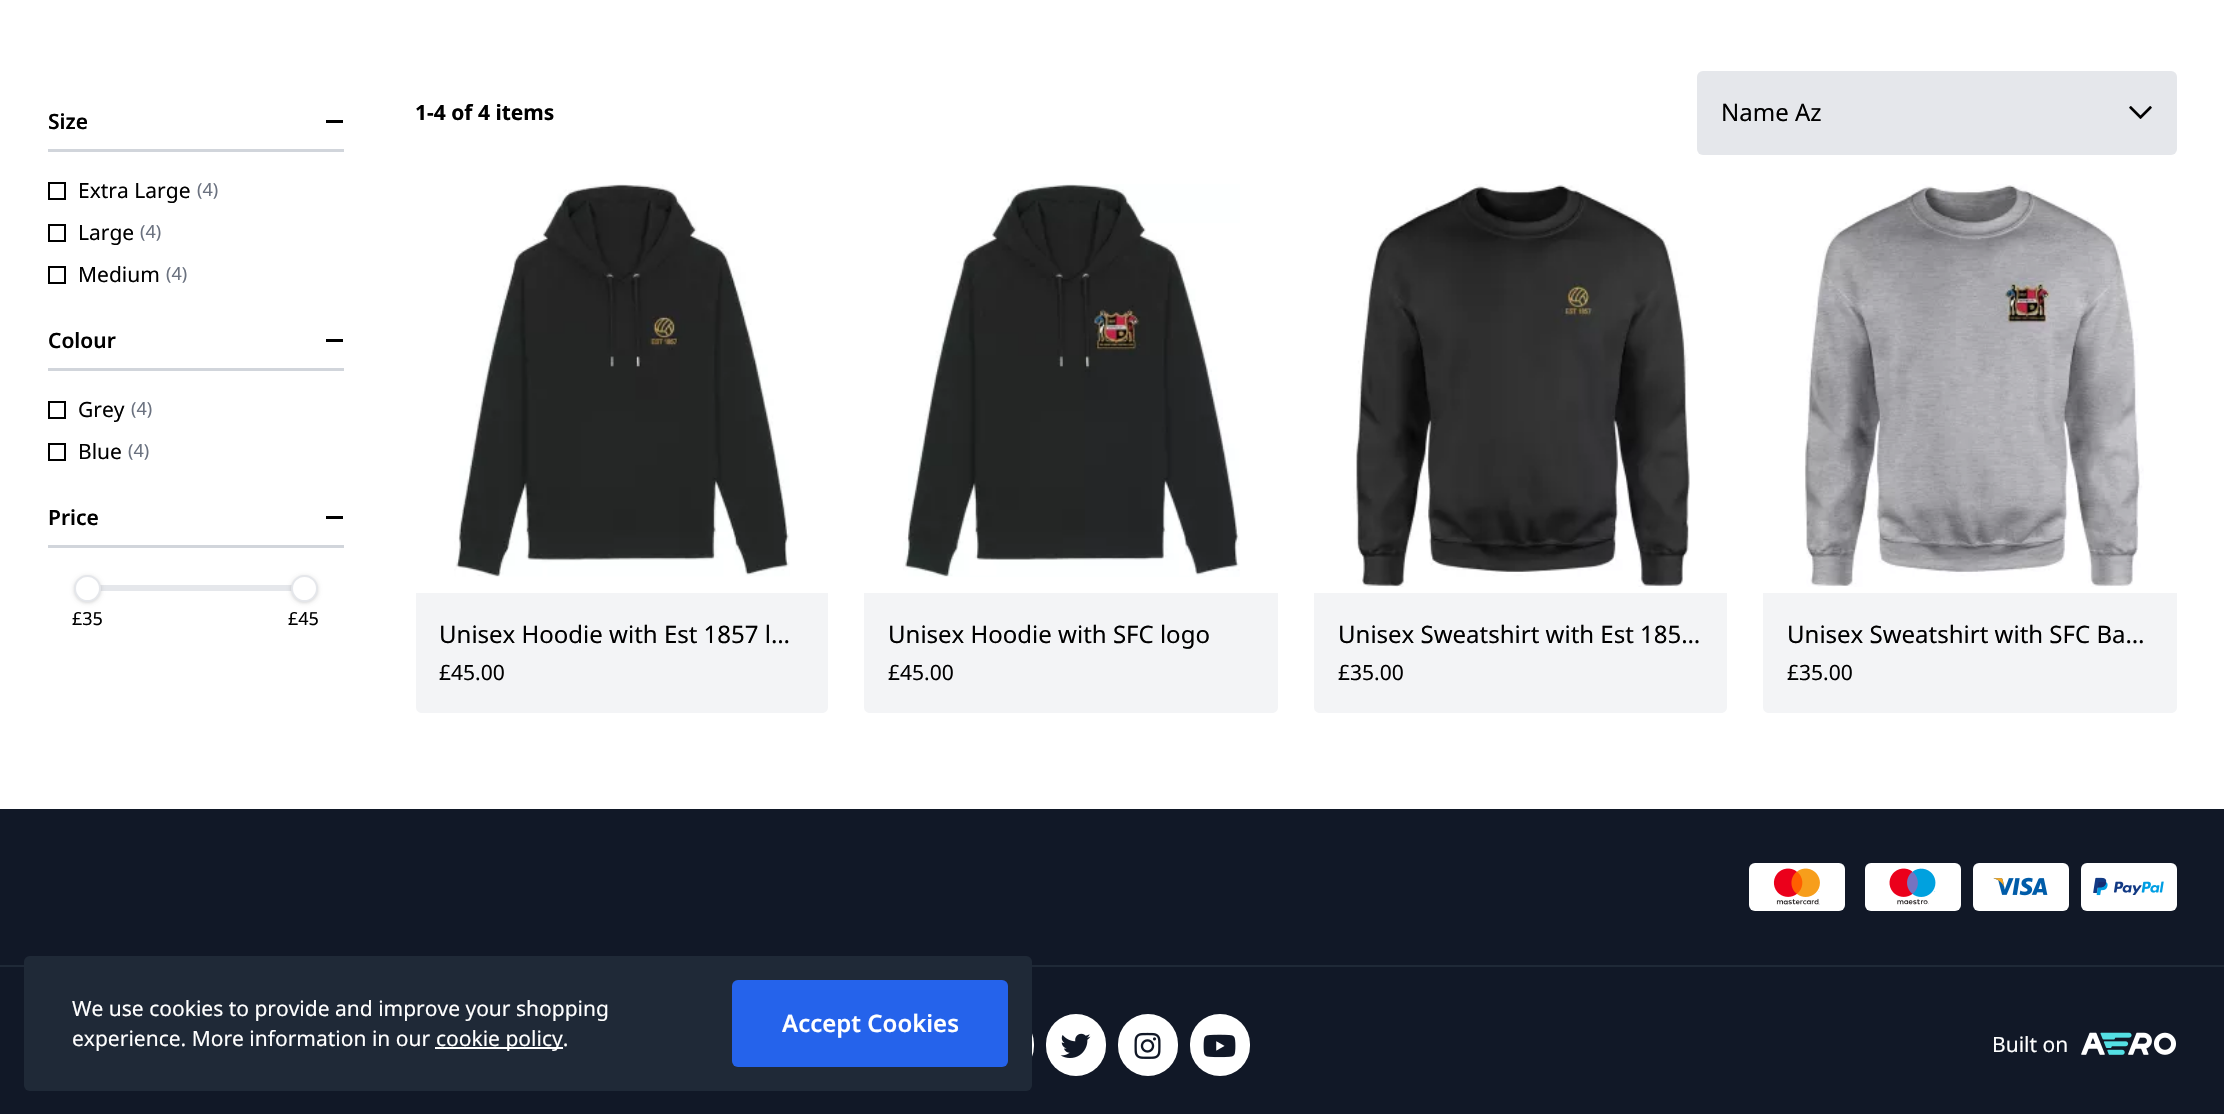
void draw(SkCanvas* canvas) {
  SkPaint paint;
  paint.setAntiAlias(true);
  auto face = [&](const char* family, int weight, float size, bool italic = false) {
    SkFontStyle style(weight, SkFontStyle::kNormal_Width,
      italic ? SkFontStyle::kItalic_Slant : SkFontStyle::kUpright_Slant);
    SkFont result(fontMgr->matchFamilyStyle(family, style), size);
    result.setSubpixel(true);
    return result;
  };
  auto paste = [&](const char* path, float x, float y, float w, float h) {
    auto image = SkImages::DeferredFromEncodedData(SkData::MakeFromFileName(path));
    canvas->drawImageRect(image, SkRect::MakeXYWH(x, y, w, h), SkSamplingOptions());
  };
  auto shape = [&](const char* data, bool evenOdd = false) {
    SkPath result = *SkParsePath::FromSVGString(data);
    if (evenOdd) result.setFillType(SkPathFillType::kEvenOdd);
    return result;
  };
  canvas->clear(0xffffffff);
  paint.setColor(0xffd1d5db);
  canvas->drawRect(SkRect::MakeXYWH(48, 149, 296, 3), paint);
  paint.setColor(0xff000000);
  canvas->drawRect(SkRect::MakeXYWH(326, 120, 17, 3), paint);
  paint.setStroke(true);
  paint.setStrokeWidth(2);
  canvas->drawRect(SkRect::MakeXYWH(49, 183, 16, 16), paint);
  canvas->drawRect(SkRect::MakeXYWH(49, 225, 16, 16), paint);
  canvas->drawRect(SkRect::MakeXYWH(49, 267, 16, 16), paint);
  paint.setStroke(false);
  paint.setColor(0xffd1d5db);
  canvas->drawRect(SkRect::MakeXYWH(48, 368, 296, 3), paint);
  paint.setColor(0xff000000);
  canvas->drawRect(SkRect::MakeXYWH(326, 339, 17, 3), paint);
  paint.setStroke(true);
  canvas->drawRect(SkRect::MakeXYWH(49, 402, 16, 16), paint);
  canvas->drawRect(SkRect::MakeXYWH(49, 444, 16, 16), paint);
  paint.setStroke(false);
  paint.setColor(0xffd1d5db);
  canvas->drawRect(SkRect::MakeXYWH(48, 545, 296, 3), paint);
  paint.setColor(0xff000000);
  canvas->drawRect(SkRect::MakeXYWH(326, 516, 17, 3), paint);
  paint.setStroke(true);
  paint.setColor(0xffe5e7eb);
  canvas->drawRect(SkRect::MakeXYWH(87, 586, 218, 4), paint);
  paint.setStroke(false);
  canvas->drawRect(SkRect::MakeXYWH(100, 587, 192, 2), paint);
  paint.setColor(0x0f000000);
  paint.setMaskFilter(SkMaskFilter::MakeBlur(kNormal_SkBlurStyle, 1.5f));
  canvas->drawRoundRect(SkRect::MakeXYWH(74, 576, 27, 27), 13.5f, 13.5f, paint);
  paint.setMaskFilter(nullptr);
  paint.setColor(0x1a000000);
  paint.setMaskFilter(SkMaskFilter::MakeBlur(kNormal_SkBlurStyle, 2));
  canvas->drawRoundRect(SkRect::MakeXYWH(74, 576, 27, 27), 13.5f, 13.5f, paint);
  paint.setMaskFilter(nullptr);
  paint.setColor(0xffffffff);
  canvas->drawCircle(87.5f, 588.5f, 12.5f, paint);
  paint.setStroke(true);
  paint.setColor(0xffe5e7eb);
  canvas->drawCircle(87.5f, 588.5f, 12.5f, paint);
  paint.setStroke(false);
  paint.setColor(0x0f000000);
  paint.setMaskFilter(SkMaskFilter::MakeBlur(kNormal_SkBlurStyle, 1.5f));
  canvas->drawRoundRect(SkRect::MakeXYWH(291, 576, 27, 27), 13.5f, 13.5f, paint);
  paint.setMaskFilter(nullptr);
  paint.setColor(0x1a000000);
  paint.setMaskFilter(SkMaskFilter::MakeBlur(kNormal_SkBlurStyle, 2));
  canvas->drawRoundRect(SkRect::MakeXYWH(291, 576, 27, 27), 13.5f, 13.5f, paint);
  paint.setMaskFilter(nullptr);
  paint.setColor(0xffffffff);
  canvas->drawCircle(304.5f, 588.5f, 12.5f, paint);
  paint.setStroke(true);
  paint.setColor(0xffe5e7eb);
  canvas->drawCircle(304.5f, 588.5f, 12.5f, paint);
  paint.setStroke(false);
  canvas->drawRoundRect(SkRect::MakeXYWH(1697, 71, 480, 84), 6, 6, paint);
  paste("img/1.png", 2129, 106, 23, 13);
  paste("img/2.png", 454, 184, 336, 393);
  paint.setColor(0xfff3f4f6);
  canvas->drawPath(shape("M416 593H828V707C828 710.5 825.5 713 822 713H422C418.5 713 416 710.5 416 707Z"), paint);
  paste("img/3.png", 903, 184, 337, 393);
  canvas->drawPath(shape("M864 593H1278V707C1278 710.5 1275.5 713 1272 713H870C866.5 713 864 710.5 864 707Z"), paint);
  paste("img/4.png", 1353, 184, 337, 403);
  canvas->drawPath(shape("M1314 593H1727V707C1727 710.5 1724.5 713 1721 713H1320C1316.5 713 1314 710.5 1314 707Z"), paint);
  paste("img/5.png", 1804, 184, 340, 403);
  canvas->drawPath(shape("M1763 593H2177V707C2177 710.5 2174.5 713 2171 713H1769C1765.5 713 1763 710.5 1763 707Z"), paint);
  {
    const struct { float x, y, w, h; SkColor color; } items[] = {
      {0, 809, 2224, 156, 0xff111827},
      {0, 967, 2224, 147, 0xff111827},
      {0, 965, 2224, 2, 0xff1f2937},
    };
    for (auto [x, y, w, h, color] : items) {
      paint.setColor(color);
      canvas->drawRect(SkRect::MakeXYWH(x, y, w, h), paint);
    }
  }
  paint.setColor(0xffffffff);
  canvas->drawRoundRect(SkRect::MakeXYWH(974, 1014, 60, 62), 30, 30, paint);
  paint.setColor(0xff1f2937);
  canvas->drawRoundRect(SkRect::MakeXYWH(24, 956, 1008, 135), 6, 6, paint);
  paint.setColor(0xffffffff);
  canvas->drawRect(SkRect::MakeXYWH(435, 1047, 128, 2), paint);
  paint.setColor(0xff2563eb);
  canvas->drawRoundRect(SkRect::MakeXYWH(732, 980, 276, 87), 6, 6, paint);
  paint.setColor(0xffffffff);
  canvas->drawRoundRect(SkRect::MakeXYWH(1749, 863, 96, 48), 6, 6, paint);
  paste("img/6.png", 1773, 868, 47, 37);
  canvas->drawRoundRect(SkRect::MakeXYWH(1865, 863, 96, 48), 6, 6, paint);
  paste("img/7.png", 1889, 868, 47, 37);
  canvas->drawRoundRect(SkRect::MakeXYWH(1973, 863, 96, 48), 6, 6, paint);
  paste("img/8.png", 1993, 877, 55, 19);
  canvas->drawRoundRect(SkRect::MakeXYWH(2081, 863, 96, 48), 6, 6, paint);
  paste("img/9.png", 2093, 877, 71, 19);
  canvas->drawRoundRect(SkRect::MakeXYWH(1046, 1014, 60, 62), 30, 30, paint);
  paste("img/10.png", 1060, 1033, 31, 25);
  canvas->drawRoundRect(SkRect::MakeXYWH(1118, 1014, 60, 62), 30, 30, paint);
  paste("img/11.png", 1134, 1032, 27, 27);
  canvas->drawRoundRect(SkRect::MakeXYWH(1190, 1014, 60, 62), 30, 30, paint);
  paste("img/12.png", 1203, 1034, 33, 24);
  paste("img/13.png", 2081, 1032, 95, 23);
  auto f0 = face("Noto Sans", 600, 21);
  paint.setColor(0xff000000);
  canvas->drawString("Size", 48, 129, f0, paint);
  auto f1 = face("Noto Sans", 400, 21);
  canvas->drawString("Extra Large", 78, 198, f1, paint);
  auto f2 = face("Noto Sans", 400, 18);
  paint.setColor(0xff6b7280);
  canvas->drawString("(4)", 197, 196, f2, paint);
  paint.setColor(0xff000000);
  canvas->drawString("Large", 78, 240, f1, paint);
  paint.setColor(0xff6b7280);
  canvas->drawString("(4)", 140, 238, f2, paint);
  paint.setColor(0xff000000);
  canvas->drawString("Medium", 78, 282, f1, paint);
  paint.setColor(0xff6b7280);
  canvas->drawString("(4)", 166, 280, f2, paint);
  paint.setColor(0xff000000);
  canvas->drawString("Colour", 48, 348, f0, paint);
  canvas->drawString("Grey", 78, 417, f1, paint);
  paint.setColor(0xff6b7280);
  canvas->drawString("(4)", 131, 415, f2, paint);
  paint.setColor(0xff000000);
  canvas->drawString("Blue", 78, 459, f1, paint);
  paint.setColor(0xff6b7280);
  canvas->drawString("(4)", 128, 457, f2, paint);
  paint.setColor(0xff000000);
  canvas->drawString("Price", 48, 525, f0, paint);
  canvas->drawString("£35", 72, 625, f2, paint);
  canvas->drawString("£45", 288, 625, f2, paint);
  auto f3 = face("Noto Sans", 700, 21);
  canvas->drawString("1-4 of 4 items", 415, 120, f3, paint);
  auto f4 = face("Noto Sans", 400, 24);
  canvas->drawString("Name Az", 1721, 121, f4, paint);
  canvas->drawString("Unisex Hoodie with Est 1857 l…", 439, 643, f4, paint);
  canvas->drawString("£45.00", 439, 680, f1, paint);
  canvas->drawString("Unisex Hoodie with SFC logo", 888, 643, f4, paint);
  canvas->drawString("£45.00", 888, 680, f1, paint);
  canvas->drawString("Unisex Sweatshirt with Est 185…", 1338, 643, f4, paint);
  canvas->drawString("£35.00", 1338, 680, f1, paint);
  canvas->drawString("Unisex Sweatshirt with SFC Ba…", 1787, 643, f4, paint);
  canvas->drawString("£35.00", 1787, 680, f1, paint);
  paint.setColor(0xffffffff);
  {
    const struct { const char* s; float x, y; } items[] = {
      {"We use cookies to provide and improve your shopping", 72, 1016},
      {"experience. More information in our", 72, 1046},
      {"cookie policy.", 436, 1046},
    };
    for (auto [s, x, y] : items) {
      canvas->drawString(s, x, y, f1, paint);
    }
  }
  auto f5 = face("Noto Sans", 600, 24);
  canvas->drawString("Accept Cookies", 782, 1032, f5, paint);
  canvas->drawString("Built on", 1992, 1052, f1, paint);
}
